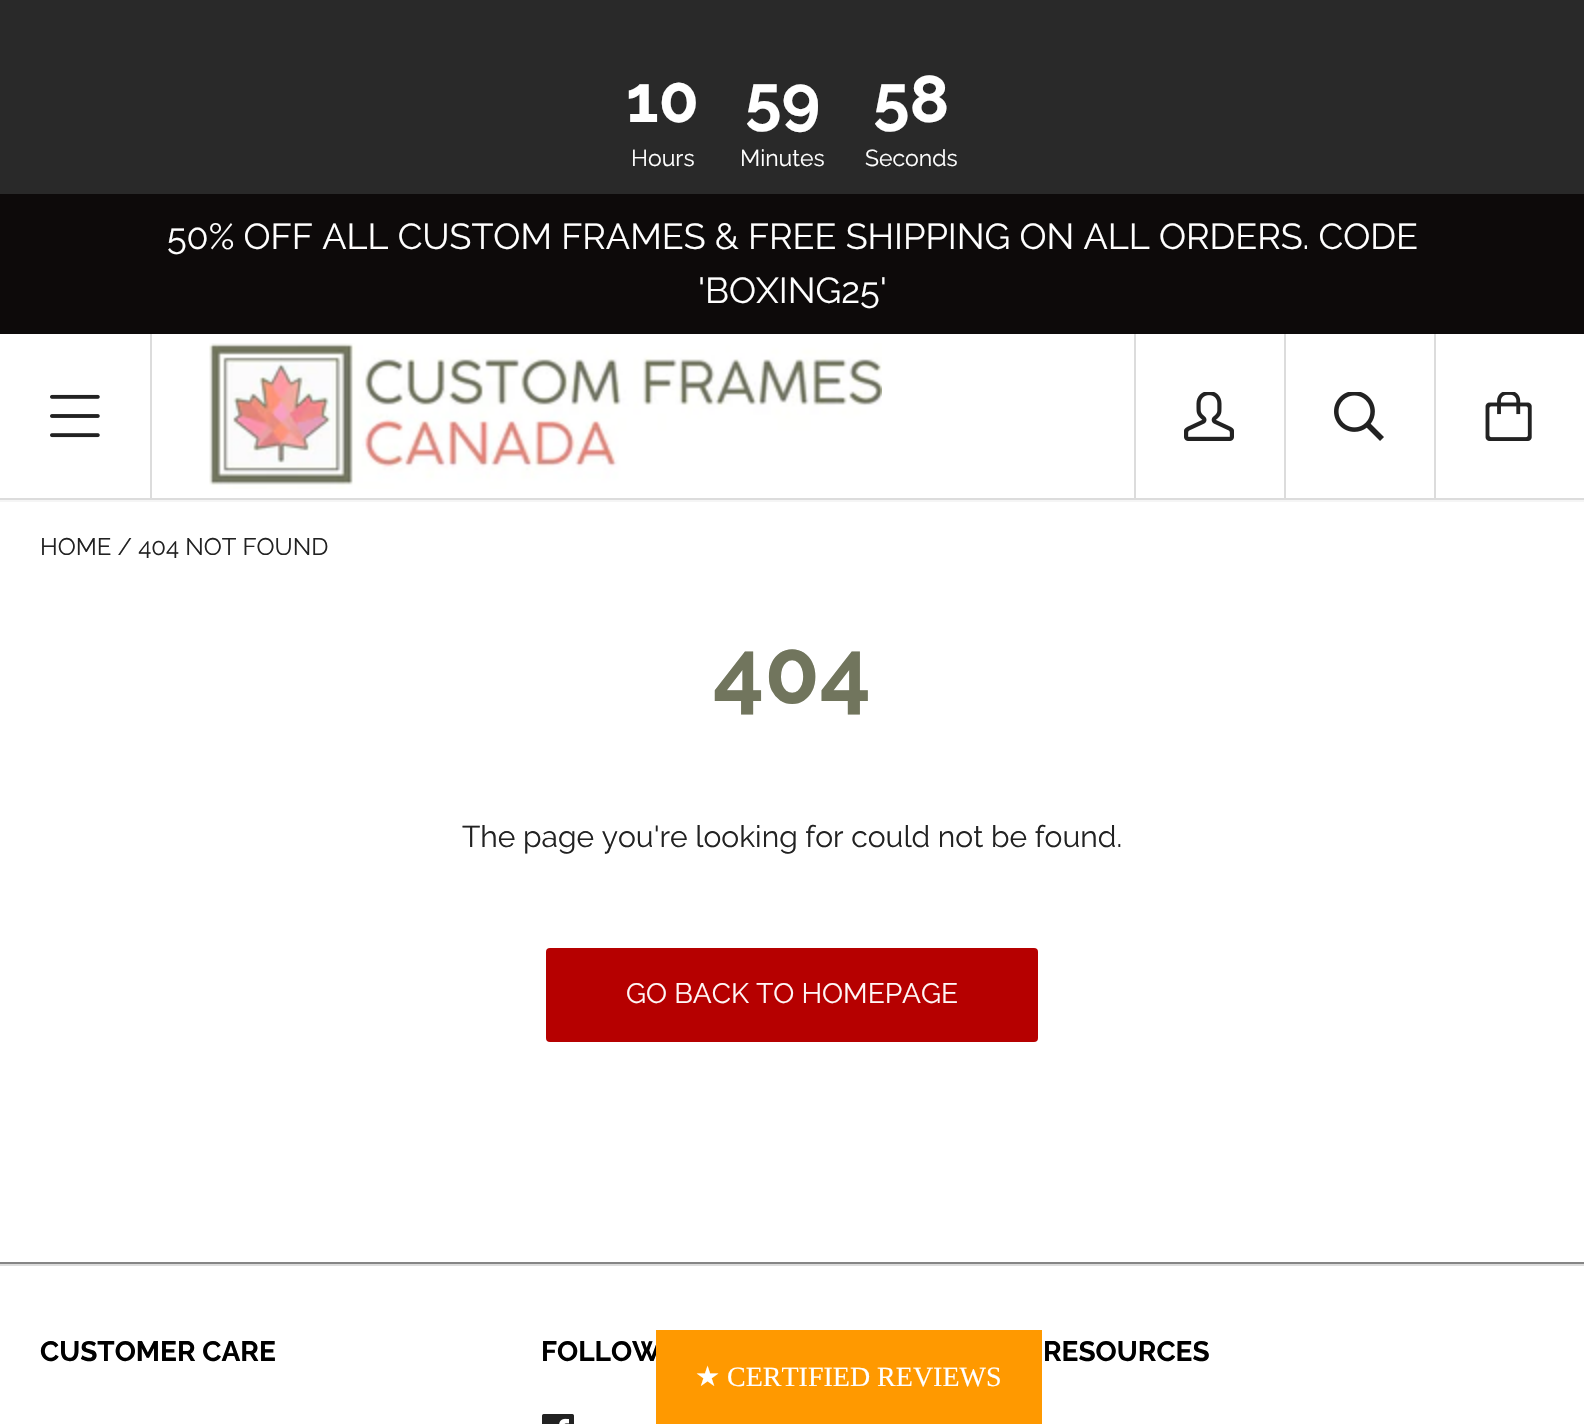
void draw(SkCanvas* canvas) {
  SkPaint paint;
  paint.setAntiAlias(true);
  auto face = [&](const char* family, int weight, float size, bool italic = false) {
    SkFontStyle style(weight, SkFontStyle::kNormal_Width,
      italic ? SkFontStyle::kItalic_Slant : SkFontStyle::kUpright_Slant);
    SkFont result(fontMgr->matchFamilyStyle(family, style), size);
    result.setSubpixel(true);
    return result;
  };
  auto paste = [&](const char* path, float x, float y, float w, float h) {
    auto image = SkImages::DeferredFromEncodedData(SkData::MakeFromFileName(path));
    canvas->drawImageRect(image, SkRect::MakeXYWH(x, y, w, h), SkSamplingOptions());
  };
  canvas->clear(0xffffffff);
  {
    const struct { float x, y, w, h; SkColor color; } items[] = {
      {0, 0, 1584, 194, 0xff292929},
      {0, 194, 1584, 140, 0xff0d0a0a},
      {0, 500, 1584, 2, 0xfff5f5f5},
      {0, 498, 1584, 2, 0xffdcdcdc},
    };
    for (auto [x, y, w, h, color] : items) {
      paint.setColor(color);
      canvas->drawRect(SkRect::MakeXYWH(x, y, w, h), paint);
    }
  }
  paste("img/1.png", 50, 394, 50, 44);
  canvas->drawRect(SkRect::MakeXYWH(150, 334, 2, 164), paint);
  paste("img/2.png", 209, 343, 673, 146);
  canvas->drawRect(SkRect::MakeXYWH(1134, 334, 2, 164), paint);
  paste("img/3.png", 1184, 392, 50, 49);
  canvas->drawRect(SkRect::MakeXYWH(1284, 334, 2, 164), paint);
  paste("img/4.png", 1334, 392, 50, 49);
  canvas->drawRect(SkRect::MakeXYWH(1434, 334, 2, 164), paint);
  paste("img/5.png", 1485, 392, 47, 49);
  paint.setColor(0xff858585);
  canvas->drawRect(SkRect::MakeXYWH(0, 1262, 1584, 2), paint);
  paint.setColor(0xffb60000);
  canvas->drawRoundRect(SkRect::MakeXYWH(546, 948, 492, 94), 4, 4, paint);
  paint.setColor(0xffdcdcdc);
  canvas->drawRect(SkRect::MakeXYWH(0, 1264, 1584, 2), paint);
  paste("img/6.png", 542, 1414, 32, 10);
  auto f0 = face("Raleway", 700, 66);
  paint.setColor(0xffffffff);
  canvas->drawString("10", 626, 122, f0, paint);
  auto f1 = face("Raleway", 400, 23);
  canvas->drawString("Hours", 631, 166, f1, paint);
  canvas->drawString("59", 745, 122, f0, paint);
  canvas->drawString("Minutes", 740, 166, f1, paint);
  canvas->drawString("58", 873, 122, f0, paint);
  canvas->drawString("Seconds", 865, 166, f1, paint);
  auto f2 = face("Raleway", 400, 36);
  canvas->drawString("50% OFF ALL CUSTOM FRAMES & FREE SHIPPING ON ALL ORDERS. CODE", 167, 249, f2, paint);
  canvas->drawString("'BOXING25'", 698, 303, f2, paint);
  auto f3 = face("Raleway", 400, 24);
  paint.setColor(0xff222222);
  canvas->drawString("HOME / 404 NOT FOUND", 40, 555, f3, paint);
  auto f4 = face("Raleway", 700, 90);
  paint.setColor(0xff71755d);
  canvas->drawString("404", 713, 703, f4, paint);
  auto f5 = face("Raleway", 400, 30);
  paint.setColor(0xff222222);
  canvas->drawString("The page you're looking for could not be found.", 462, 847, f5, paint);
  auto f6 = face("Raleway", 400, 28);
  paint.setColor(0xfffff7f7);
  canvas->drawString("GO BACK TO HOMEPAGE", 626, 1003, f6, paint);
  auto f7 = face("Raleway", 700, 28);
  paint.setColor(0xff000000);
  {
    const struct { const char* s; float x, y; } items[] = {
      {"CUSTOMER CARE", 40, 1361},
      {"FOLLOW", 541, 1361},
      {"RESOURCES", 1043, 1361},
    };
    for (auto [s, x, y] : items) {
      canvas->drawString(s, x, y, f7, paint);
    }
  }
  paint.setColor(0xffff9900);
  canvas->drawRect(SkRect::MakeXYWH(656, 1330, 386, 94), paint);
  auto f8 = face("DejaVu Sans", 400, 28);
  paint.setColor(0xffffffff);
  canvas->drawString("★", 695, 1386, f8, paint);
  auto f9 = face("Liberation Serif", 400, 28);
  canvas->drawString("CERTIFIED REVIEWS", 727, 1386, f9, paint);
}
